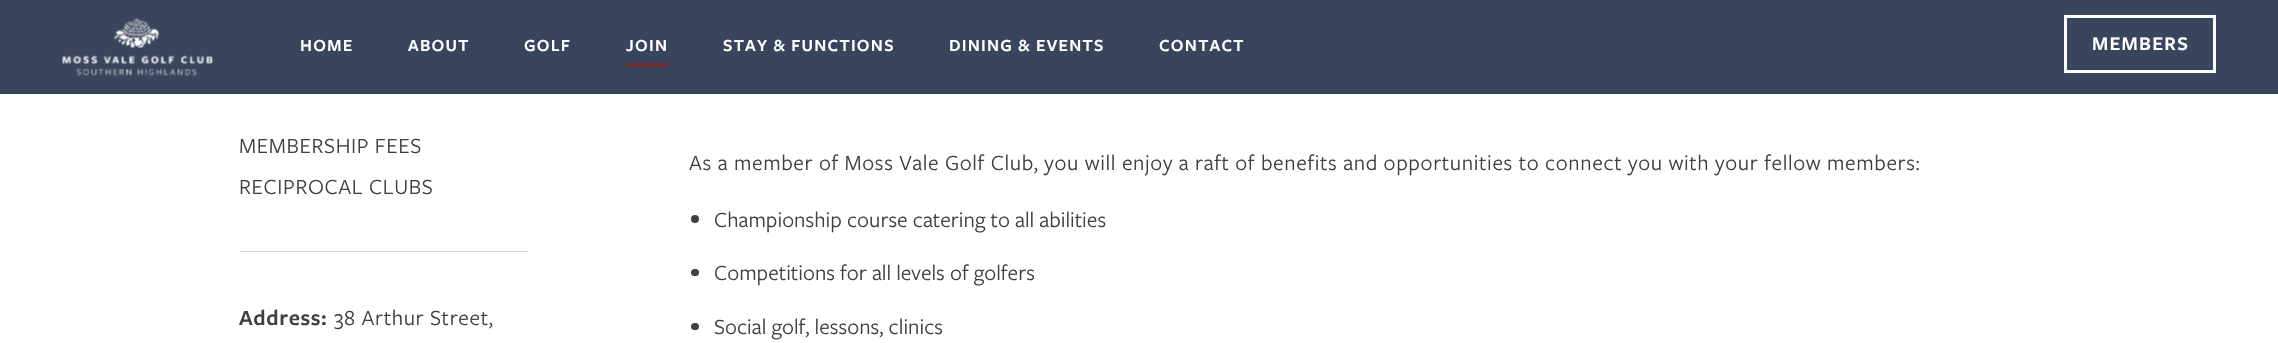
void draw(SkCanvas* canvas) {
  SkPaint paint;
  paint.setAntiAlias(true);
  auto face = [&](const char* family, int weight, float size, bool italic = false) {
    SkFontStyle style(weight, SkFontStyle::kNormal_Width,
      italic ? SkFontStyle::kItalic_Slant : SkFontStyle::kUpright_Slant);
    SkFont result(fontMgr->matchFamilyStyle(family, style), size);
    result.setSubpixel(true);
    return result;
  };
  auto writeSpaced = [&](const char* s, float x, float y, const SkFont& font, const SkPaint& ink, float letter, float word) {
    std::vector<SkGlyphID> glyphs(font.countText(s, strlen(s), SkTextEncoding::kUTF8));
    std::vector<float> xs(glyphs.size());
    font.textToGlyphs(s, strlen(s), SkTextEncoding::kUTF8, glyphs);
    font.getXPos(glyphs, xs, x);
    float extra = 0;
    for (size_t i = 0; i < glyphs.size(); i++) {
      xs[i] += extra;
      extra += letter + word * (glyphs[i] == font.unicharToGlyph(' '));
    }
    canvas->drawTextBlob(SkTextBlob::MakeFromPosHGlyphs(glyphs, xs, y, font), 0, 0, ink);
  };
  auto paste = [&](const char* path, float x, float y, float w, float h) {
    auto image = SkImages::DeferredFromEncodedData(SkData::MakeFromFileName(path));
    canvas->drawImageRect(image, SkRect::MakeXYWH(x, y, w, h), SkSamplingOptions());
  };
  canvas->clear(0xffffffff);
  paint.setColor(0xd915253f);
  canvas->drawRect(SkRect::MakeXYWH(0, 0, 2278, 94), paint);
  paste("img/1.png", 62, 18, 151, 58);
  paint.setColor(0xff713033);
  canvas->drawRect(SkRect::MakeXYWH(626, 63, 43, 4), paint);
  paint.setStroke(true);
  paint.setStrokeWidth(3);
  paint.setColor(0xffffffff);
  canvas->drawRect(SkRect::MakeXYWH(2065.5f, 16.5f, 149, 55), paint);
  paint.setStroke(false);
  paint.setColor(0xffd6d7d7);
  canvas->drawRect(SkRect::MakeXYWH(240, 251, 288, 1), paint);
  paint.setColor(0xff3d4145);
  canvas->drawCircle(695, 219, 4, paint);
  canvas->drawRoundRect(SkRect::MakeXYWH(691, 269, 8, 7), 3.5f, 3.5f, paint);
  canvas->drawRoundRect(SkRect::MakeXYWH(691, 323, 8, 7), 3.5f, 3.5f, paint);
  auto f0 = face("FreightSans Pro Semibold", 600, 17.5f);
  paint.setColor(0xffffffff);
  {
    const struct { const char* s; float x, y; } items[] = {
      {"HOME", 300, 51},
      {"ABOUT", 408, 51},
      {"GOLF", 524, 51},
      {"JOIN", 626, 51},
      {"STAY & FUNCTIONS", 723, 51},
      {"DINING & EVENTS", 949, 51},
      {"CONTACT", 1159, 51},
    };
    for (auto [s, x, y] : items) {
      writeSpaced(s, x, y, f0, paint, 1.25f, 0);
    }
  }
  auto f1 = face("FreightSans Pro Semibold", 600, 20);
  writeSpaced("MEMBERS", 2092, 50, f1, paint, 1.25f, 0);
  auto f2 = face("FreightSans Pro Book", 400, 22.5f);
  paint.setColor(0xff3d4145);
  writeSpaced("MEMBERSHIP FEES", 239, 153, f2, paint, 0.62f, 0);
  writeSpaced("RECIPROCAL CLUBS", 239, 194, f2, paint, 0.62f, 0);
  auto f3 = face("FreightSans Pro Semibold", 600, 22.5f);
  writeSpaced("Address:", 239, 325, f3, paint, 0.62f, 0);
  writeSpaced("38 Arthur Street,", 334, 325, f2, paint, 0.62f, 0);
  writeSpaced("As a member of Moss Vale Golf Club, you will enjoy a raft of benefits and opportunities to connect you with your fellow members:", 689, 170, f2, paint, 0.62f, 0);
  {
    const struct { const char* s; float x, y; } items[] = {
      {"Championship course catering to all abilities", 714, 227},
      {"Competitions for all levels of golfers", 714, 280},
      {"Social golf, lessons, clinics", 714, 334},
    };
    for (auto [s, x, y] : items) {
      canvas->drawString(s, x, y, f2, paint);
    }
  }
}
